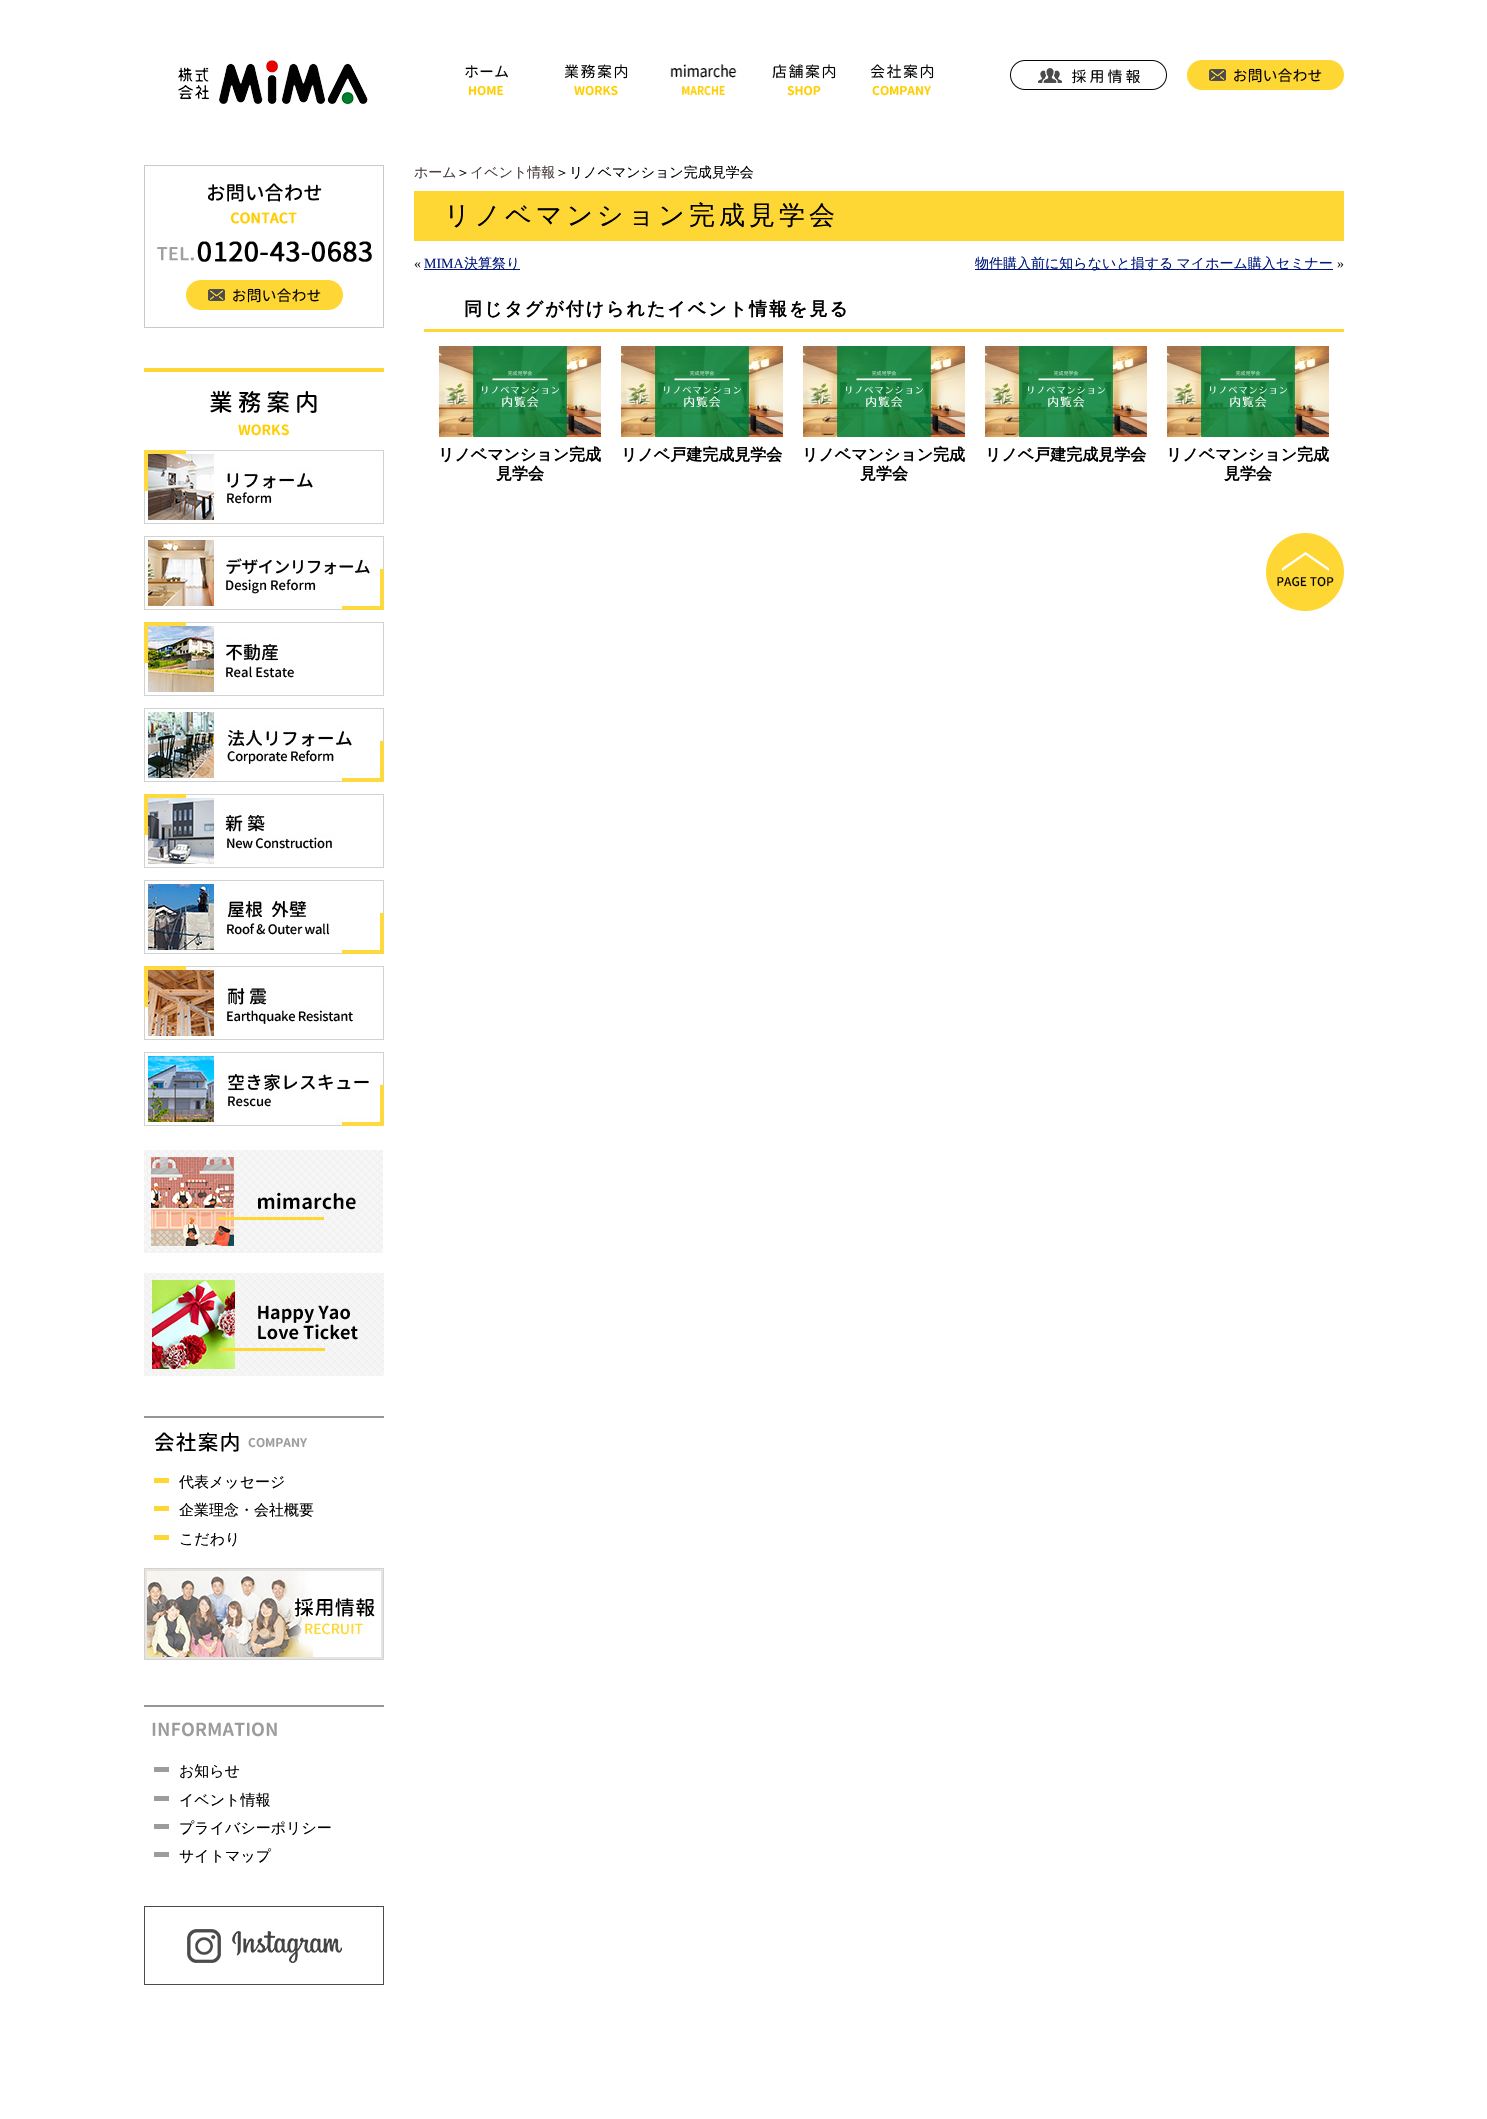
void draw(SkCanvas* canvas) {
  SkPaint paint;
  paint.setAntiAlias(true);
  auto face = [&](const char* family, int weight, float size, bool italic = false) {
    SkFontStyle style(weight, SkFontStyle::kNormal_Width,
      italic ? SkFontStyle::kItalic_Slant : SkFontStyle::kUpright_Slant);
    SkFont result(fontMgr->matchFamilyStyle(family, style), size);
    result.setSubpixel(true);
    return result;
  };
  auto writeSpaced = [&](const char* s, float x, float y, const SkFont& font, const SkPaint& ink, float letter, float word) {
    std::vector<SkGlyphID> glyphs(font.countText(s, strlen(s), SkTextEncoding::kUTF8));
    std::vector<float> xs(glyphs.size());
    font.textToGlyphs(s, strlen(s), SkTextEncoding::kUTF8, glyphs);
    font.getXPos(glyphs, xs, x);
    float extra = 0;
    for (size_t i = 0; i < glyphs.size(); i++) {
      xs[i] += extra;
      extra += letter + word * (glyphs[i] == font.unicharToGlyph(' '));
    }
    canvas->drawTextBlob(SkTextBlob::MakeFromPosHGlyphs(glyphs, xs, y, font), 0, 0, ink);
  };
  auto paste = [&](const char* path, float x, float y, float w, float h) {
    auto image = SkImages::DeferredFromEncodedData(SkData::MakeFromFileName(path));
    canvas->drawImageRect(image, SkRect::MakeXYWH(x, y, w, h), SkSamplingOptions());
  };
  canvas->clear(0xffffffff);
  paste("img/1.png", 178, 60, 190, 45);
  paste("img/2.png", 465, 65, 43, 31);
  paste("img/3.png", 565, 64, 63, 32);
  paste("img/4.png", 670, 64, 67, 32);
  paste("img/5.png", 772, 64, 64, 32);
  paste("img/6.png", 870, 64, 64, 32);
  paste("img/7.png", 1010, 60, 157, 30);
  paste("img/8.png", 1187, 60, 157, 30);
  {
    const struct { float x, y, w, h; SkColor color; } items[] = {
      {414, 191, 930, 50, 0xffffd734},
      {424, 269, 96, 1, 0xff01197d},
      {975, 269, 358, 1, 0xff01197d},
      {424, 329, 920, 3, 0xffffd734},
    };
    for (auto [x, y, w, h, color] : items) {
      paint.setColor(color);
      canvas->drawRect(SkRect::MakeXYWH(x, y, w, h), paint);
    }
  }
  paste("img/9.png", 439, 346, 162, 91);
  paste("img/9.png", 621, 346, 162, 91);
  paste("img/9.png", 803, 346, 162, 91);
  paste("img/9.png", 985, 346, 162, 91);
  paste("img/9.png", 1167, 346, 162, 91);
  paste("img/10.png", 1266, 533, 78, 78);
  paste("img/11.png", 144, 165, 240, 163);
  canvas->drawRect(SkRect::MakeXYWH(144, 368, 240, 2), paint);
  paste("img/12.png", 144, 370, 240, 66);
  paste("img/13.png", 144, 450, 240, 74);
  paste("img/14.png", 144, 536, 240, 74);
  paste("img/15.png", 144, 622, 240, 74);
  paste("img/16.png", 144, 708, 240, 74);
  paste("img/17.png", 144, 794, 240, 74);
  paste("img/18.png", 144, 880, 240, 74);
  paste("img/19.png", 144, 966, 240, 74);
  paste("img/20.png", 144, 1052, 240, 74);
  paste("img/21.png", 144, 1150, 239, 103);
  paste("img/22.png", 144, 1273, 240, 103);
  paint.setColor(0xff969696);
  canvas->drawRect(SkRect::MakeXYWH(144, 1416, 240, 2), paint);
  paste("img/23.png", 155, 1432, 152, 20);
  {
    const struct { float x, y, w, h; SkColor color; } items[] = {
      {154, 1478, 15, 5, 0xffffd734},
      {154, 1506, 15, 5, 0xffffd734},
      {154, 1535, 15, 5, 0xffffd734},
    };
    for (auto [x, y, w, h, color] : items) {
      paint.setColor(color);
      canvas->drawRect(SkRect::MakeXYWH(x, y, w, h), paint);
    }
  }
  paste("img/24.png", 144, 1568, 240, 92);
  paint.setColor(0xff969696);
  canvas->drawRect(SkRect::MakeXYWH(144, 1705, 240, 2), paint);
  paste("img/25.png", 152, 1722, 125, 15);
  {
    const struct { float x, y, w, h; SkColor color; } items[] = {
      {154, 1767, 15, 5, 0xff9c9c9c},
      {154, 1796, 15, 5, 0xff9c9c9c},
      {154, 1824, 15, 5, 0xff9c9c9c},
      {154, 1852, 15, 5, 0xff9c9c9c},
    };
    for (auto [x, y, w, h, color] : items) {
      paint.setColor(color);
      canvas->drawRect(SkRect::MakeXYWH(x, y, w, h), paint);
    }
  }
  paste("img/26.png", 144, 1906, 240, 79);
  auto f0 = face("WenQuanYi Zen Hei", 500, 14);
  paint.setColor(0xff4d3f3f);
  canvas->drawString("ホーム", 414, 177, f0, paint);
  paint.setColor(0xff000000);
  canvas->drawString("＞", 456, 177, f0, paint);
  paint.setColor(0xff4d3f3f);
  canvas->drawString("イベント情報", 470, 177, f0, paint);
  paint.setColor(0xff000000);
  canvas->drawString("＞リノベマンション完成見学会", 555, 177, f0, paint);
  auto f1 = face("WenQuanYi Zen Hei", 500, 26);
  writeSpaced("リノベマンション完成見学会", 444, 224, f1, paint, 4, 0);
  auto f2 = face("Liberation Serif", 400, 14);
  paint.setColor(0xff222222);
  canvas->drawString("«", 414, 268, f2, paint);
  paint.setColor(0xff01197d);
  canvas->drawString("MIMA", 424, 268, f2, paint);
  canvas->drawString("決算祭り", 464, 268, f0, paint);
  writeSpaced("物件購入前に知らないと損する マイホーム購入セミナー", 975, 268, f0, paint, 0, -1);
  paint.setColor(0xff222222);
  canvas->drawString("»", 1337, 268, f2, paint);
  auto f3 = face("WenQuanYi Zen Hei", 700, 18);
  paint.setColor(0xff000000);
  writeSpaced("同じタグが付けられたイベント情報を見る", 464, 315, f3, paint, 2, 0);
  auto f4 = face("WenQuanYi Zen Hei", 700, 16);
  {
    const struct { const char* s; float x, y; } items[] = {
      {"リノベマンション完成", 438, 460},
      {"見学会", 496, 479},
      {"リノベ戸建完成見学会", 621, 460},
      {"リノベマンション完成", 802, 460},
      {"見学会", 860, 479},
      {"リノベ戸建完成見学会", 985, 460},
      {"リノベマンション完成", 1166, 460},
      {"見学会", 1224, 479},
    };
    for (auto [s, x, y] : items) {
      canvas->drawString(s, x, y, f4, paint);
    }
  }
  auto f5 = face("WenQuanYi Zen Hei", 500, 15);
  {
    const struct { const char* s; float x, y; } items[] = {
      {"代表メッセージ", 179, 1487},
      {"企業理念・会社概要", 179, 1515},
      {"こだわり", 179, 1544},
      {"お知らせ", 179, 1776},
      {"イベント情報", 179, 1805},
      {"プライバシーポリシー", 179, 1833},
      {"サイトマップ", 179, 1861},
    };
    for (auto [s, x, y] : items) {
      canvas->drawString(s, x, y, f5, paint);
    }
  }
}
